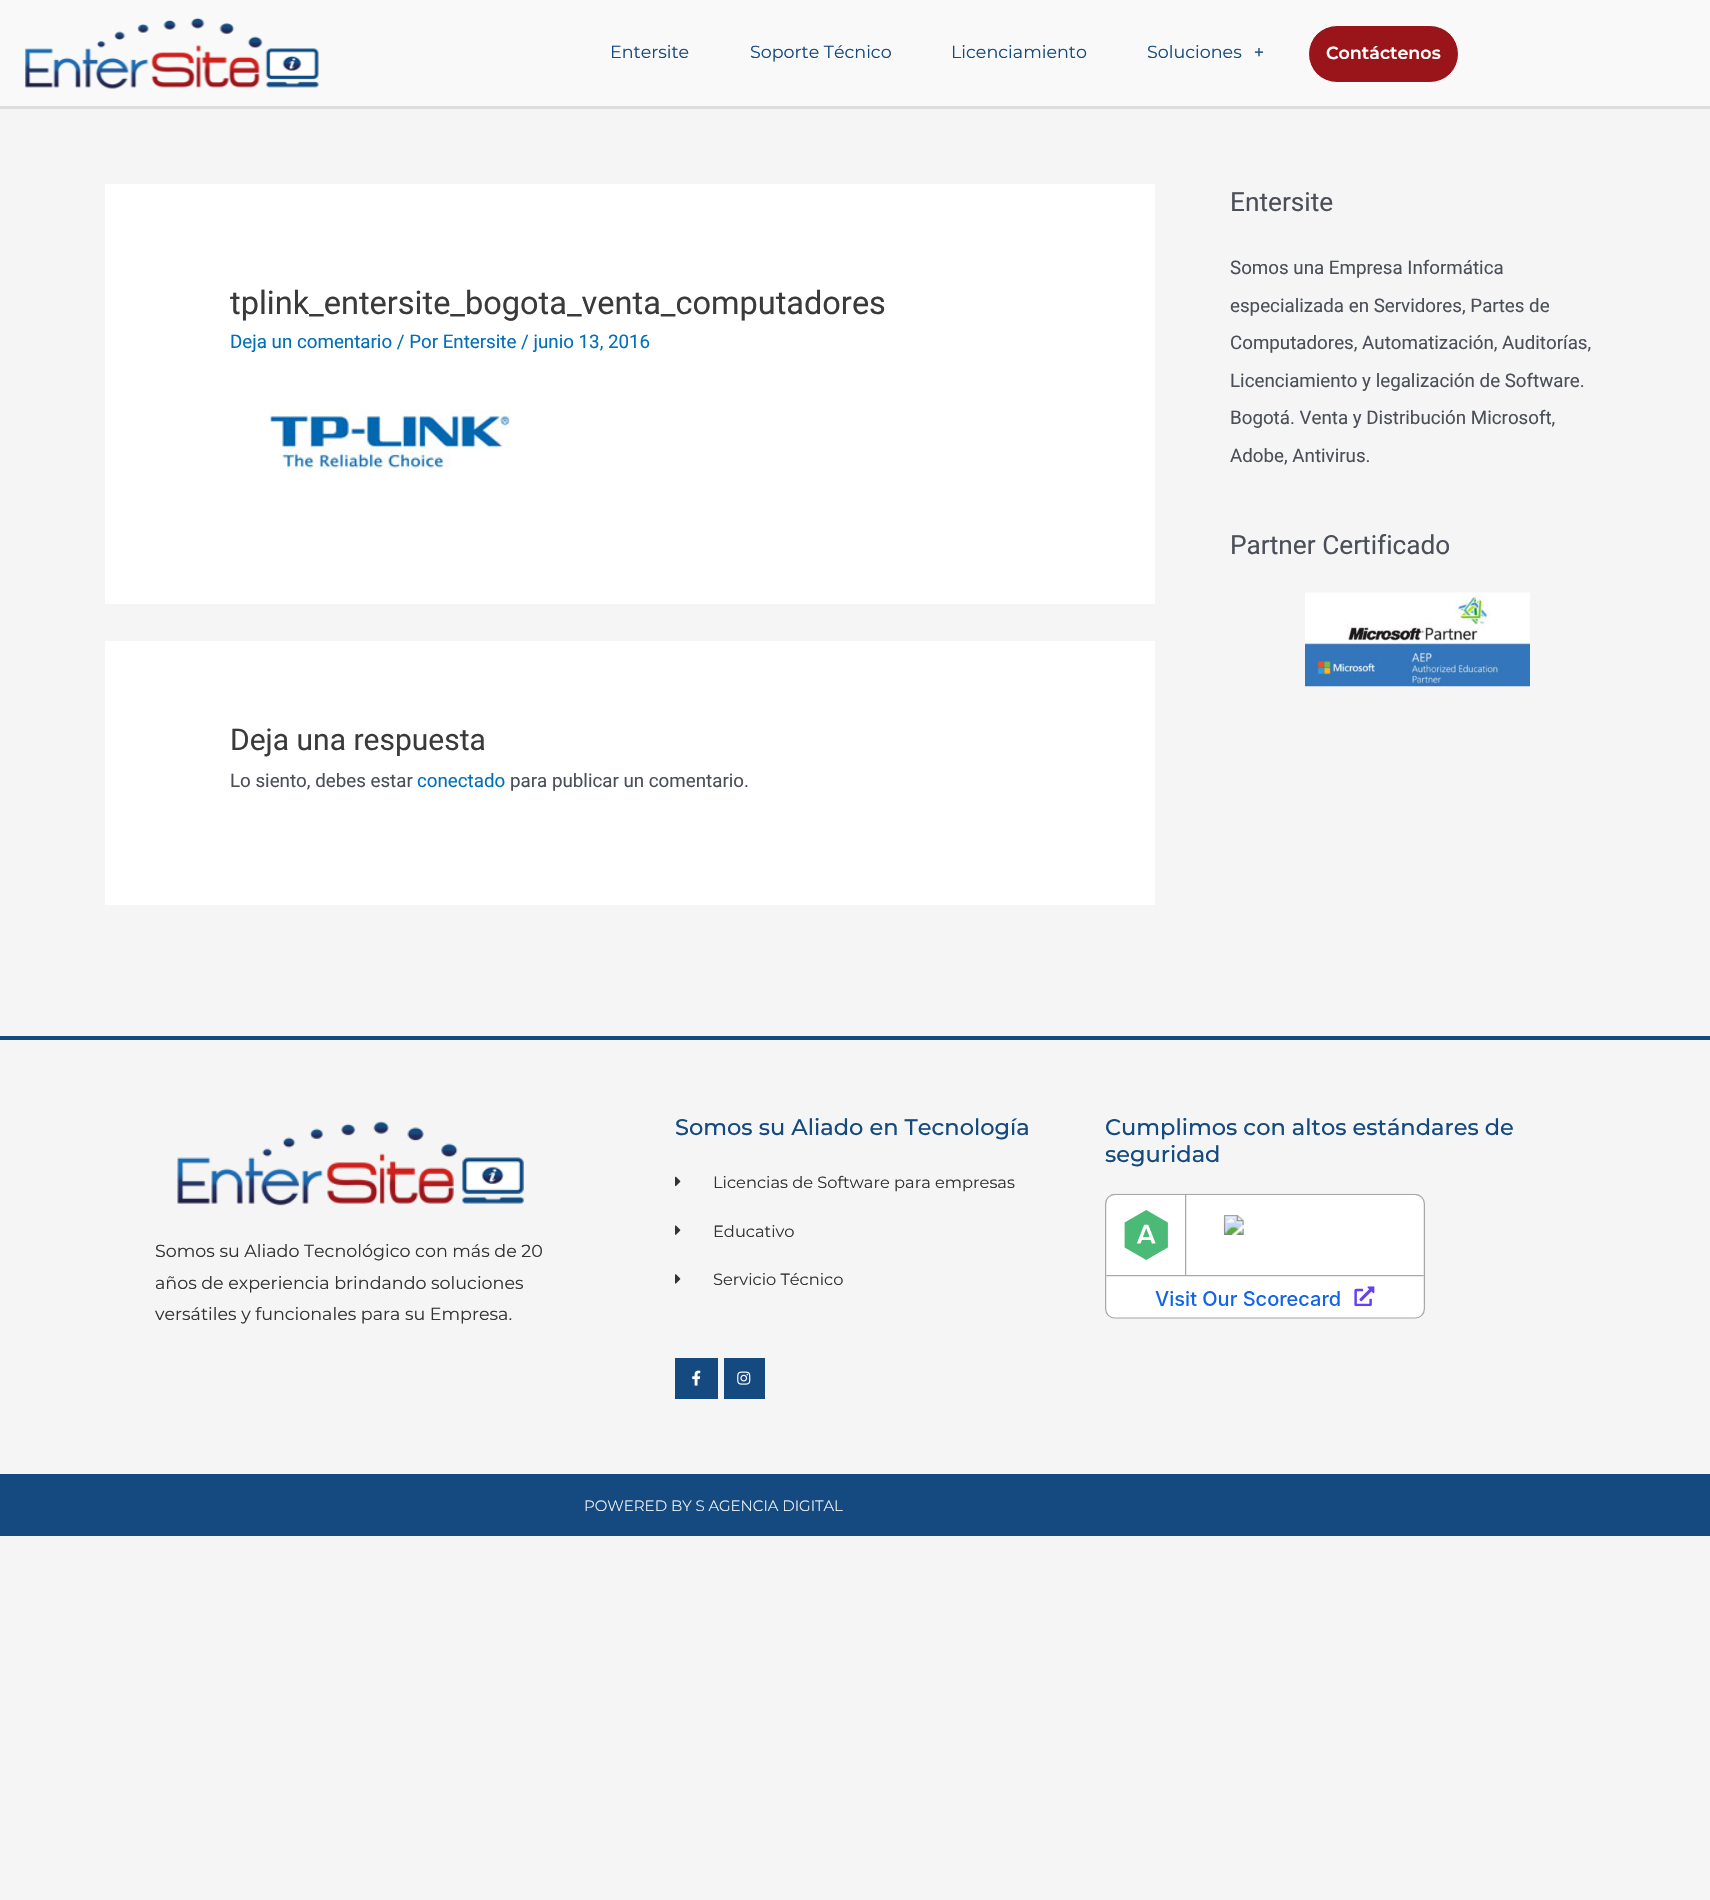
void draw(SkCanvas* canvas) {
  SkPaint paint;
  paint.setAntiAlias(true);
  auto face = [&](const char* family, int weight, float size, bool italic = false) {
    SkFontStyle style(weight, SkFontStyle::kNormal_Width,
      italic ? SkFontStyle::kItalic_Slant : SkFontStyle::kUpright_Slant);
    SkFont result(fontMgr->matchFamilyStyle(family, style), size);
    result.setSubpixel(true);
    return result;
  };
  auto paste = [&](const char* path, float x, float y, float w, float h) {
    auto image = SkImages::DeferredFromEncodedData(SkData::MakeFromFileName(path));
    canvas->drawImageRect(image, SkRect::MakeXYWH(x, y, w, h), SkSamplingOptions());
  };
  canvas->clear(0xfff5f5f5);
  paint.setColor(0xfff9f9f9);
  canvas->drawRect(SkRect::MakeXYWH(0, 0, 1710, 106), paint);
  paint.setColor(0xffdddddd);
  canvas->drawRect(SkRect::MakeXYWH(0, 106, 1710, 3), paint);
  paste("img/1.png", 25, 17, 294, 72);
  paint.setColor(0xff9a1519);
  canvas->drawRoundRect(SkRect::MakeXYWH(1308.5f, 25.5f, 150, 57), 28.5f, 28.5f, paint);
  paint.setStroke(true);
  paint.setStrokeWidth(1);
  paint.setColor(0xffffffff);
  canvas->drawRoundRect(SkRect::MakeXYWH(1308.5f, 25.5f, 150, 57), 28.5f, 28.5f, paint);
  paint.setStroke(false);
  canvas->drawRect(SkRect::MakeXYWH(105, 184, 1050, 420), paint);
  paste("img/2.png", 269, 409, 242, 60);
  canvas->drawRect(SkRect::MakeXYWH(105, 641, 1050, 264), paint);
  paste("img/3.png", 1305, 592, 225, 95);
  paint.setColor(0xff144a80);
  canvas->drawRect(SkRect::MakeXYWH(0, 1036, 1710, 4), paint);
  paste("img/4.png", 675, 1176, 6, 11);
  paste("img/5.png", 675, 1225, 6, 10);
  paste("img/6.png", 675, 1274, 6, 10);
  canvas->drawRect(SkRect::MakeXYWH(675, 1358, 43, 41), paint);
  paste("img/7.png", 692, 1370, 9, 16);
  canvas->drawRect(SkRect::MakeXYWH(724, 1358, 41, 41), paint);
  paste("img/8.png", 737, 1371, 14, 14);
  paste("img/9.png", 1105, 1193, 320, 126);
  paste("img/10.png", 177, 1121, 347, 85);
  canvas->drawRect(SkRect::MakeXYWH(0, 1474, 1710, 62), paint);
  auto f0 = face("Montserrat", 400, 17.5f);
  {
    const struct { const char* s; float x, y; } items[] = {
      {"Entersite", 610, 58},
      {"Soporte Técnico", 750, 58},
      {"Licenciamiento", 951, 58},
      {"Soluciones", 1147, 58},
    };
    for (auto [s, x, y] : items) {
      canvas->drawString(s, x, y, f0, paint);
    }
  }
  auto f1 = face("Liberation Serif", 700, 17.5f);
  canvas->drawString("+", 1254, 58, f1, paint);
  auto f2 = face("Montserrat", 600, 17.5f);
  paint.setColor(0xffffffff);
  canvas->drawString("Contáctenos", 1326, 59, f2, paint);
  auto f3 = face("Roboto", 400, 32.5f);
  paint.setColor(0xff3a3a3a);
  canvas->drawString("tplink_entersite_bogota_venta_computadores", 230, 314, f3, paint);
  auto f4 = face("Roboto", 400, 18.75f);
  paint.setColor(0xff0170b9);
  canvas->drawString("Deja un comentario / Por Entersite / junio 13, 2016", 230, 348, f4, paint);
  auto f5 = face("Roboto", 400, 30);
  paint.setColor(0xff3a3a3a);
  canvas->drawString("Deja una respuesta", 230, 750, f5, paint);
  paint.setColor(0xff4b4f58);
  canvas->drawString("Lo siento, debes estar", 230, 787, f4, paint);
  paint.setColor(0xff0170b9);
  canvas->drawString("conectado", 417, 787, f4, paint);
  paint.setColor(0xff4b4f58);
  canvas->drawString("para publicar un comentario.", 510, 787, f4, paint);
  auto f6 = face("Roboto", 400, 26.25f);
  canvas->drawString("Entersite", 1230, 211, f6, paint);
  {
    const struct { const char* s; float x, y; } items[] = {
      {"Somos una Empresa Informática", 1230, 274},
      {"especializada en Servidores, Partes de", 1230, 312},
      {"Computadores, Automatización, Auditorías,", 1230, 349},
      {"Licenciamiento y legalización de Software.", 1230, 387},
      {"Bogotá. Venta y Distribución Microsoft,", 1230, 424},
      {"Adobe, Antivirus.", 1230, 462},
    };
    for (auto [s, x, y] : items) {
      canvas->drawString(s, x, y, f4, paint);
    }
  }
  canvas->drawString("Partner Certificado", 1230, 554, f6, paint);
  auto f7 = face("Montserrat", 500, 22.5f);
  paint.setColor(0xff144a80);
  canvas->drawString("Somos su Aliado en Tecnología", 675, 1135, f7, paint);
  auto f8 = face("Montserrat", 400, 16.25f);
  paint.setColor(0xff333333);
  {
    const struct { const char* s; float x, y; } items[] = {
      {"Licencias de Software para empresas", 713, 1188},
      {"Educativo", 713, 1237},
      {"Servicio Técnico", 713, 1285},
    };
    for (auto [s, x, y] : items) {
      canvas->drawString(s, x, y, f8, paint);
    }
  }
  paint.setColor(0xff144a80);
  canvas->drawString("Cumplimos con altos estándares de", 1105, 1135, f7, paint);
  canvas->drawString("seguridad", 1105, 1162, f7, paint);
  paint.setColor(0xff333333);
  {
    const struct { const char* s; float x, y; } items[] = {
      {"Somos su Aliado Tecnológico con más de 20", 155, 1257},
      {"años de experiencia brindando soluciones", 155, 1289},
      {"versátiles y funcionales para su Empresa.", 155, 1320},
    };
    for (auto [s, x, y] : items) {
      canvas->drawString(s, x, y, f0, paint);
    }
  }
  auto f9 = face("Montserrat", 300, 15);
  paint.setColor(0xffffffff);
  canvas->drawString("POWERED BY S AGENCIA DIGITAL", 584, 1511, f9, paint);
}
